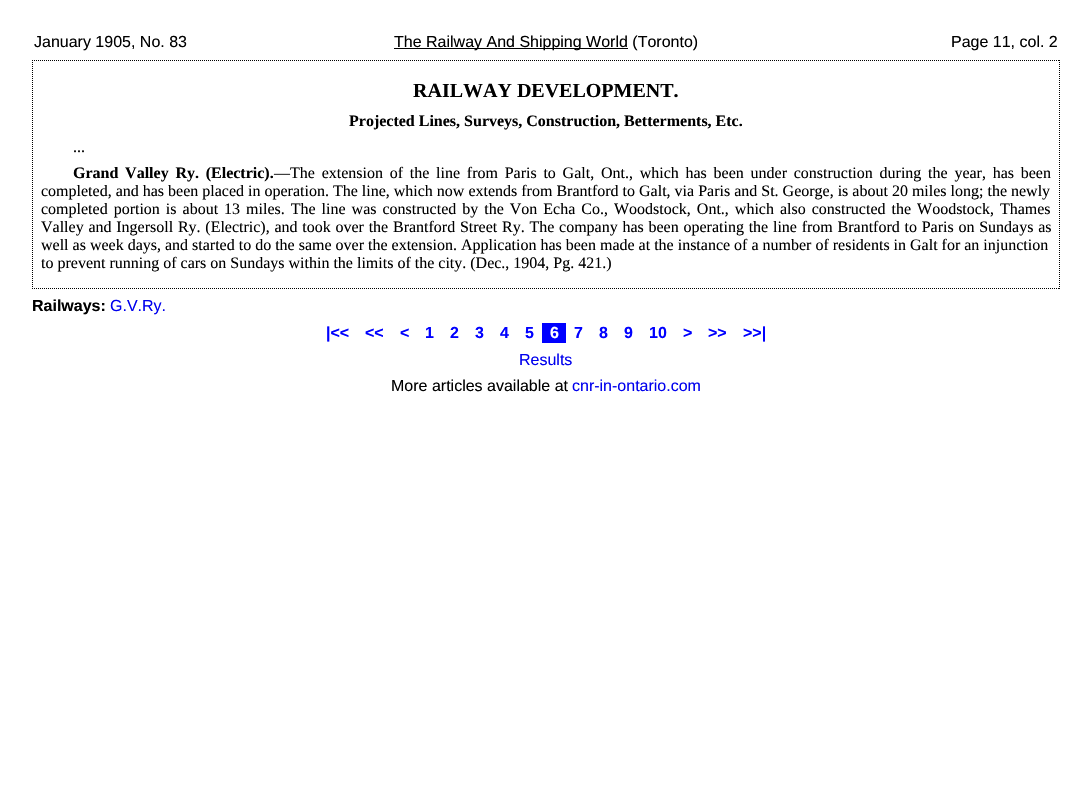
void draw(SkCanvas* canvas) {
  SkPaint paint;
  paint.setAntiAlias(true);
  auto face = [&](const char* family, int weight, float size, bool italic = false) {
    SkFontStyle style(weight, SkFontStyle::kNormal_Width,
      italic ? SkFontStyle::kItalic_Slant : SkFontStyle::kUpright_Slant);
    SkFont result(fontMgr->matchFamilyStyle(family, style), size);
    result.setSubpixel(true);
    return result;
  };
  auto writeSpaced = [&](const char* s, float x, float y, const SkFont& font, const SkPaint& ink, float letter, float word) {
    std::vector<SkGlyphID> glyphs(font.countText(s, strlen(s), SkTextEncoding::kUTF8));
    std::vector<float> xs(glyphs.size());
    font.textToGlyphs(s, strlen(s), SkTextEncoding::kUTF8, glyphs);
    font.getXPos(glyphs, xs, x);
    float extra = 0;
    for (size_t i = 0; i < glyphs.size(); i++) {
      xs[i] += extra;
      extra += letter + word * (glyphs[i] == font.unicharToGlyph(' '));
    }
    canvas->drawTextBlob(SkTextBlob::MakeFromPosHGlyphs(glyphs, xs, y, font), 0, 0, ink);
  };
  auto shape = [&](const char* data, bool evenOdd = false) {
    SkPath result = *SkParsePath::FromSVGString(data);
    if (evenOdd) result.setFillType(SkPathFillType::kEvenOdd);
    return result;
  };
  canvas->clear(0xffffffff);
  paint.setColor(0xff000000);
  canvas->drawRect(SkRect::MakeXYWH(394, 48, 234, 1), paint);
  paint.setStroke(true);
  paint.setStrokeWidth(1);
  paint.setPathEffect(SkDashPathEffect::Make({{1, 1}}, 0));
  canvas->drawPath(shape("M32 60.5H1060"), paint);
  paint.setPathEffect(nullptr);
  paint.setPathEffect(SkDashPathEffect::Make({{1, 1}}, 0));
  canvas->drawPath(shape("M1059.5 60V289"), paint);
  paint.setPathEffect(nullptr);
  paint.setPathEffect(SkDashPathEffect::Make({{1, 1}}, 0));
  canvas->drawPath(shape("M32 288.5H1060"), paint);
  paint.setPathEffect(nullptr);
  paint.setPathEffect(SkDashPathEffect::Make({{1, 1}}, 0));
  canvas->drawPath(shape("M32.5 60V289"), paint);
  paint.setPathEffect(nullptr);
  paint.setStroke(false);
  paint.setColor(0xff0000ff);
  canvas->drawRect(SkRect::MakeXYWH(542, 323, 24, 20), paint);
  auto f0 = face("Liberation Sans", 400, 16);
  paint.setColor(0xff000000);
  {
    const struct { const char* s; float x, y; } items[] = {
      {"January 1905, No. 83", 34, 47},
      {"The Railway And Shipping World (Toronto)", 394, 47},
      {"Page 11, col. 2", 951, 47},
    };
    for (auto [s, x, y] : items) {
      canvas->drawString(s, x, y, f0, paint);
    }
  }
  auto f1 = face("Liberation Serif", 700, 20);
  canvas->drawString("RAILWAY DEVELOPMENT.", 413, 97, f1, paint);
  auto f2 = face("Liberation Serif", 700, 16);
  canvas->drawString("Projected Lines, Surveys, Construction, Betterments, Etc.", 349, 126, f2, paint);
  auto f3 = face("Liberation Serif", 400, 16);
  canvas->drawString("...", 73, 152, f3, paint);
  writeSpaced("Grand Valley Ry. (Electric).", 73, 178, f2, paint, 0, 2.75f);
  writeSpaced("—The extension of the line from Paris to Galt, Ont., which has been under construction during the year, has been", 274, 178, f3, paint, 0, 2.75f);
  canvas->drawString("completed, and has been placed in operation. The line, which now extends from Brantford to Galt, via Paris and St. George, is about 20 miles long; the newly", 41, 196, f3, paint);
  writeSpaced("completed portion is about 13 miles. The line was constructed by the Von Echa Co., Woodstock, Ont., which also constructed the Woodstock, Thames", 41, 214, f3, paint, 0, 2);
  writeSpaced("Valley and Ingersoll Ry. (Electric), and took over the Brantford Street Ry. The company has been operating the line from Brantford to Paris on Sundays as", 41, 232, f3, paint, 0, 0.75f);
  canvas->drawString("well as week days, and started to do the same over the extension. Application has been made at the instance of a number of residents in Galt for an injunction", 41, 250, f3, paint);
  canvas->drawString("to prevent running of cars on Sundays within the limits of the city. (Dec., 1904, Pg. 421.)", 41, 268, f3, paint);
  auto f4 = face("Liberation Sans", 700, 16);
  canvas->drawString("Railways:", 32, 311, f4, paint);
  paint.setColor(0xff0000ee);
  canvas->drawString("G.V.Ry.", 110, 311, f0, paint);
  paint.setColor(0xff0000ff);
  {
    const struct { const char* s; float x, y; } items[] = {
      {"|<<", 326, 338},
      {"<<", 365, 338},
      {"<", 400, 338},
      {"1", 425, 338},
      {"2", 450, 338},
      {"3", 475, 338},
      {"4", 500, 338},
      {"5", 525, 338},
    };
    for (auto [s, x, y] : items) {
      canvas->drawString(s, x, y, f4, paint);
    }
  }
  paint.setColor(0xffffffff);
  canvas->drawString("6", 550, 338, f4, paint);
  paint.setColor(0xff0000ff);
  {
    const struct { const char* s; float x, y; } items[] = {
      {"7", 574, 338},
      {"8", 599, 338},
      {"9", 624, 338},
      {"10", 649, 338},
      {">", 683, 338},
      {">>", 708, 338},
      {">>|", 743, 338},
    };
    for (auto [s, x, y] : items) {
      canvas->drawString(s, x, y, f4, paint);
    }
  }
  paint.setColor(0xff0000ee);
  canvas->drawString("Results", 519, 365, f0, paint);
  paint.setColor(0xff000000);
  canvas->drawString("More articles available at", 391, 391, f0, paint);
  paint.setColor(0xff0000ee);
  canvas->drawString("cnr-in-ontario.com", 572, 391, f0, paint);
}
